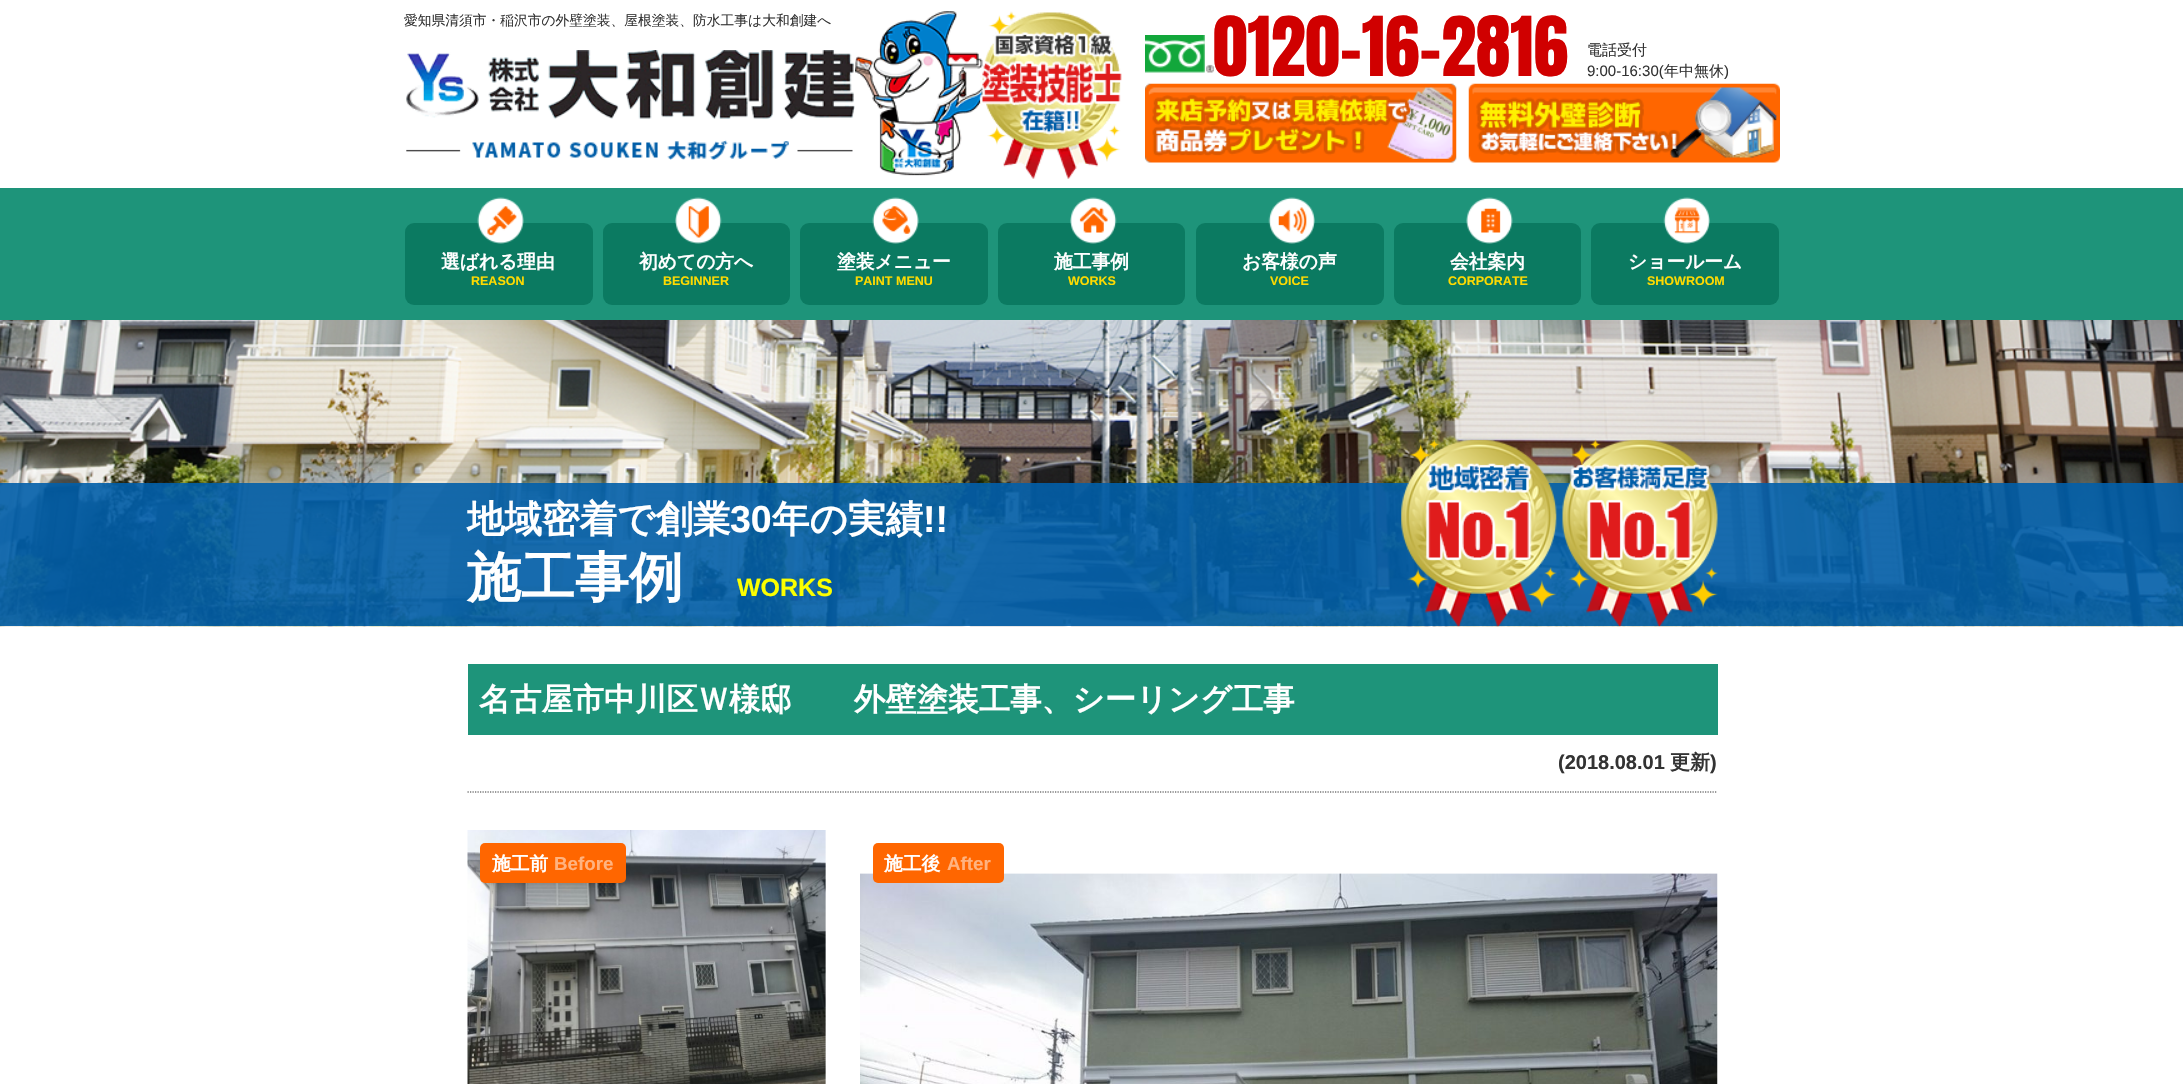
void draw(SkCanvas* canvas) {
  SkPaint paint;
  paint.setAntiAlias(true);
  auto face = [&](const char* family, int weight, float size, bool italic = false) {
    SkFontStyle style(weight, SkFontStyle::kNormal_Width,
      italic ? SkFontStyle::kItalic_Slant : SkFontStyle::kUpright_Slant);
    SkFont result(fontMgr->matchFamilyStyle(family, style), size);
    result.setSubpixel(true);
    return result;
  };
  auto paste = [&](const char* path, float x, float y, float w, float h) {
    auto image = SkImages::DeferredFromEncodedData(SkData::MakeFromFileName(path));
    canvas->drawImageRect(image, SkRect::MakeXYWH(x, y, w, h), SkSamplingOptions());
  };
  auto shape = [&](const char* data, bool evenOdd = false) {
    SkPath result = *SkParsePath::FromSVGString(data);
    if (evenOdd) result.setFillType(SkPathFillType::kEvenOdd);
    return result;
  };
  canvas->clear(0xffffffff);
  paste("img/1.png", 406, 50, 449, 110);
  paste("img/2.png", 855, 11, 267, 168);
  paste("img/3.png", 1145, 35, 69, 38);
  paste("img/4.png", 1145, 83, 312, 80);
  paste("img/5.png", 1468, 83, 312, 80);
  paint.setColor(0xff1e947a);
  canvas->drawRect(SkRect::MakeXYWH(0, 188, 2183, 132), paint);
  paint.setColor(0xff0b7a61);
  canvas->drawRoundRect(SkRect::MakeXYWH(405, 223, 188, 82), 9, 9, paint);
  paste("img/6.png", 477, 197, 47, 47);
  canvas->drawRoundRect(SkRect::MakeXYWH(603, 223, 187, 82), 9, 9, paint);
  paste("img/7.png", 675, 197, 47, 47);
  canvas->drawRoundRect(SkRect::MakeXYWH(800, 223, 188, 82), 9, 9, paint);
  paste("img/8.png", 872, 197, 47, 47);
  canvas->drawRoundRect(SkRect::MakeXYWH(998, 223, 187, 82), 9, 9, paint);
  paste("img/9.png", 1070, 197, 47, 47);
  canvas->drawRoundRect(SkRect::MakeXYWH(1196, 223, 188, 82), 9, 9, paint);
  paste("img/10.png", 1268, 197, 47, 47);
  canvas->drawRoundRect(SkRect::MakeXYWH(1394, 223, 187, 82), 9, 9, paint);
  paste("img/11.png", 1466, 197, 47, 47);
  canvas->drawRoundRect(SkRect::MakeXYWH(1591, 223, 188, 82), 9, 9, paint);
  paste("img/12.png", 1663, 197, 47, 47);
  paste("img/13.png", 0, 320, 2183, 307);
  paint.setColor(0xe6015ea8);
  canvas->drawRect(SkRect::MakeXYWH(0, 483, 2183, 143), paint);
  paste("img/14.png", 1401, 439, 317, 188);
  paint.setColor(0xff1e947a);
  canvas->drawRect(SkRect::MakeXYWH(468, 664, 1250, 71), paint);
  paint.setStroke(true);
  paint.setStrokeWidth(1.2f);
  paint.setColor(0xff333333);
  paint.setPathEffect(SkDashPathEffect::Make({{1.25f, 1.25f}}, 0));
  canvas->drawPath(shape("M467.5 792H1717.5"), paint);
  paint.setPathEffect(nullptr);
  paste("img/15.png", 467, 830, 359, 254);
  paint.setStroke(false);
  paint.setColor(0xffff6600);
  canvas->drawRoundRect(SkRect::MakeXYWH(480, 843, 146, 40), 5, 5, paint);
  paste("img/16.png", 860, 873, 858, 211);
  canvas->drawRoundRect(SkRect::MakeXYWH(873, 843, 131, 40), 5, 5, paint);
  auto f0 = face("WenQuanYi Zen Hei", 500, 13.75f);
  paint.setColor(0xff333333);
  canvas->drawString("愛知県清須市・稲沢市の外壁塗装、屋根塗装、防水工事は大和創建へ", 404, 25, f0, paint);
  auto f1 = face("Anton", 400, 70);
  paint.setColor(0xffd00000);
  canvas->drawString("0120-16-2816", 1213, 76, f1, paint);
  auto f2 = face("WenQuanYi Zen Hei", 500, 15);
  paint.setColor(0xff333333);
  canvas->drawString("電話受付", 1587, 55, f2, paint);
  auto f3 = face("Liberation Sans", 400, 15);
  canvas->drawString("9:00-16:30(", 1587, 76, f3, paint);
  canvas->drawString("年中無休", 1664, 76, f2, paint);
  canvas->drawString(")", 1724, 76, f3, paint);
  auto f4 = face("WenQuanYi Zen Hei", 700, 18.75f);
  paint.setColor(0xffffffff);
  canvas->drawString("選ばれる理由", 441, 268, f4, paint);
  auto f5 = face("Liberation Sans", 700, 12.5f);
  paint.setColor(0xfffeda00);
  canvas->drawString("REASON", 471, 285, f5, paint);
  paint.setColor(0xffffffff);
  canvas->drawString("初めての方へ", 639, 268, f4, paint);
  paint.setColor(0xfffeda00);
  canvas->drawString("BEGINNER", 663, 285, f5, paint);
  paint.setColor(0xffffffff);
  canvas->drawString("塗装メニュー", 837, 268, f4, paint);
  paint.setColor(0xfffeda00);
  canvas->drawString("PAINT MENU", 855, 285, f5, paint);
  paint.setColor(0xffffffff);
  canvas->drawString("施工事例", 1054, 268, f4, paint);
  paint.setColor(0xfffeda00);
  canvas->drawString("WORKS", 1068, 285, f5, paint);
  paint.setColor(0xffffffff);
  canvas->drawString("お客様の声", 1242, 268, f4, paint);
  paint.setColor(0xfffeda00);
  canvas->drawString("VOICE", 1270, 285, f5, paint);
  paint.setColor(0xffffffff);
  canvas->drawString("会社案内", 1450, 268, f4, paint);
  paint.setColor(0xfffeda00);
  canvas->drawString("CORPORATE", 1448, 285, f5, paint);
  paint.setColor(0xffffffff);
  canvas->drawString("ショールーム", 1628, 268, f4, paint);
  paint.setColor(0xfffeda00);
  canvas->drawString("SHOWROOM", 1647, 285, f5, paint);
  auto f6 = face("WenQuanYi Zen Hei", 700, 37.5f);
  paint.setColor(0xffffffff);
  canvas->drawString("地域密着で創業", 467, 532, f6, paint);
  auto f7 = face("Liberation Sans", 700, 37.5f);
  canvas->drawString("30", 730, 532, f7, paint);
  canvas->drawString("年の実績", 772, 532, f6, paint);
  canvas->drawString("!!", 923, 532, f7, paint);
  auto f8 = face("WenQuanYi Zen Hei", 700, 54);
  canvas->drawString("施工事例", 467, 596, f8, paint);
  auto f9 = face("Liberation Sans", 700, 25);
  paint.setColor(0xfffcff00);
  canvas->drawString("WORKS", 737, 596, f9, paint);
  auto f10 = face("WenQuanYi Zen Hei", 700, 31.25f);
  paint.setColor(0xffffffff);
  canvas->drawString("名古屋市中川区Ｗ様邸　　外壁塗装工事、シーリング工事", 479, 710, f10, paint);
  auto f11 = face("Liberation Sans", 700, 20);
  paint.setColor(0xff333333);
  canvas->drawString("(2018.08.01", 1558, 769, f11, paint);
  auto f12 = face("WenQuanYi Zen Hei", 700, 20);
  canvas->drawString("更新", 1670, 769, f12, paint);
  canvas->drawString(")", 1710, 769, f11, paint);
  paint.setColor(0xffffffff);
  canvas->drawString("施工前", 492, 870, f4, paint);
  auto f13 = face("Liberation Sans", 700, 18.75f);
  paint.setColor(0xffffb380);
  canvas->drawString("Before", 554, 870, f13, paint);
  paint.setColor(0xffffffff);
  canvas->drawString("施工後", 884, 870, f4, paint);
  paint.setColor(0xffffb380);
  canvas->drawString("After", 947, 870, f13, paint);
}
